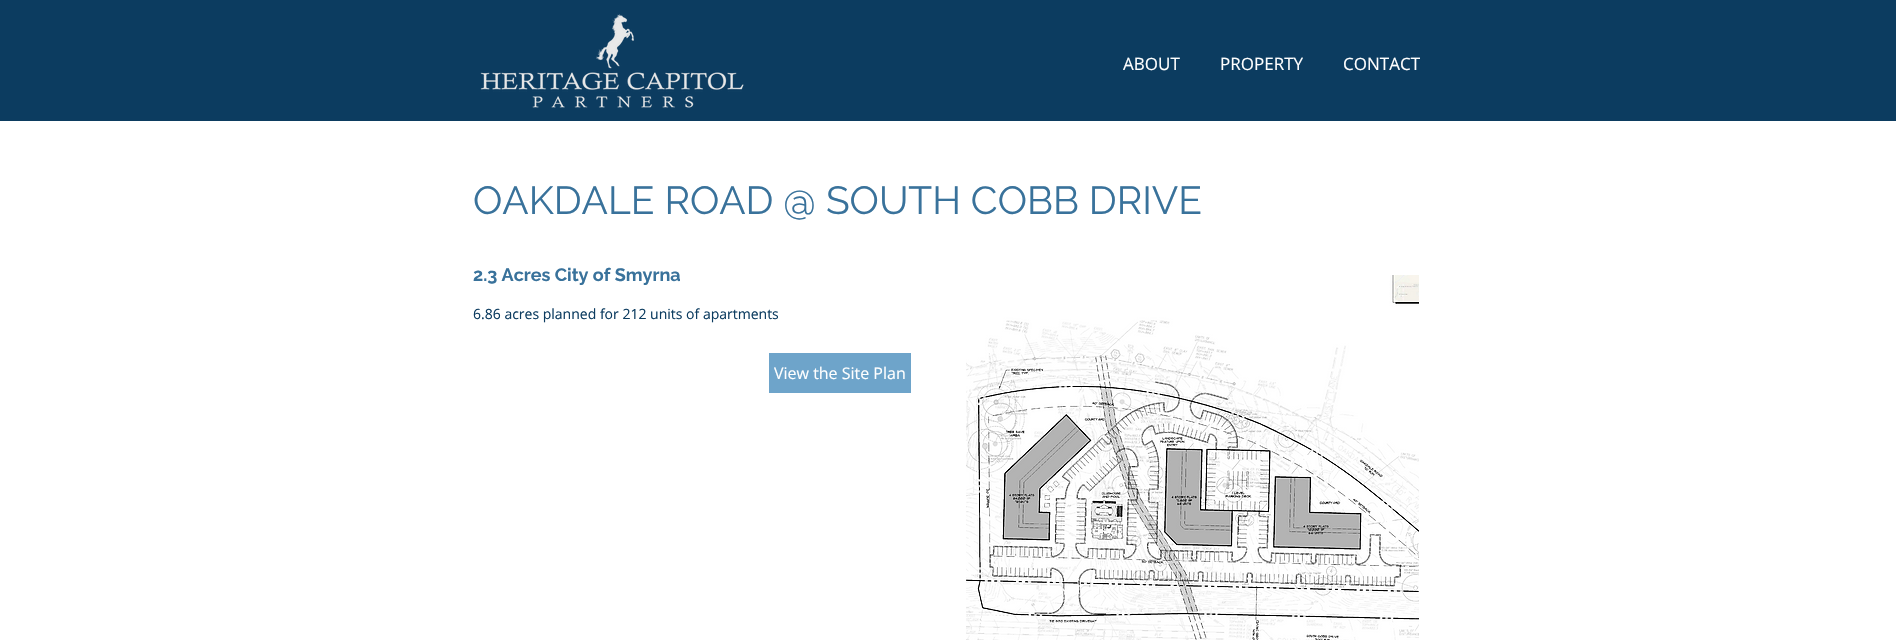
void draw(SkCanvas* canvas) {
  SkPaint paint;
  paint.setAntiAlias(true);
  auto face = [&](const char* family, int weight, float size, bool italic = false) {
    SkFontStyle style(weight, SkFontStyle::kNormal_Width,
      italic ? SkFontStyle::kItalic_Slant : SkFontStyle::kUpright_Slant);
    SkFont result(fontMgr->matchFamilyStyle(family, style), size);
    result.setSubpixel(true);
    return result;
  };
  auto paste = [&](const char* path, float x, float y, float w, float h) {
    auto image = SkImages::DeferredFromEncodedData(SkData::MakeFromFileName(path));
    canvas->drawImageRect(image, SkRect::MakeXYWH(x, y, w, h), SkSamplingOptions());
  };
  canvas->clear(0xffffffff);
  paint.setColor(0xff0c3c60);
  canvas->drawRect(SkRect::MakeXYWH(0, 0, 1896, 121), paint);
  paste("img/1.png", 480, 14, 264, 94);
  paint.setColor(0xff6ea4ca);
  canvas->drawRect(SkRect::MakeXYWH(769, 353, 142, 40), paint);
  paste("img/2.png", 966, 275, 453, 365);
  auto f0 = face("Open Sans", 400, 17);
  paint.setColor(0xffffffff);
  {
    const struct { const char* s; float x, y; } items[] = {
      {"ABOUT", 1123, 70},
      {"PROPERTY", 1220, 70},
      {"CONTACT", 1343, 70},
    };
    for (auto [s, x, y] : items) {
      canvas->drawString(s, x, y, f0, paint);
    }
  }
  auto f1 = face("Raleway", 400, 39);
  paint.setColor(0xff39729b);
  canvas->drawString("OAKDALE ROAD @ SOUTH COBB DRIVE", 473, 214, f1, paint);
  auto f2 = face("Raleway", 700, 18);
  canvas->drawString("2.3 Acres City of Smyrna", 473, 281, f2, paint);
  auto f3 = face("Open Sans", 400, 14);
  paint.setColor(0xff0c3c60);
  canvas->drawString("6.86 acres planned for 212 units of apartments", 473, 319, f3, paint);
  auto f4 = face("Open Sans", 400, 16);
  paint.setColor(0xffffffff);
  canvas->drawString("View the Site Plan", 774, 379, f4, paint);
}
